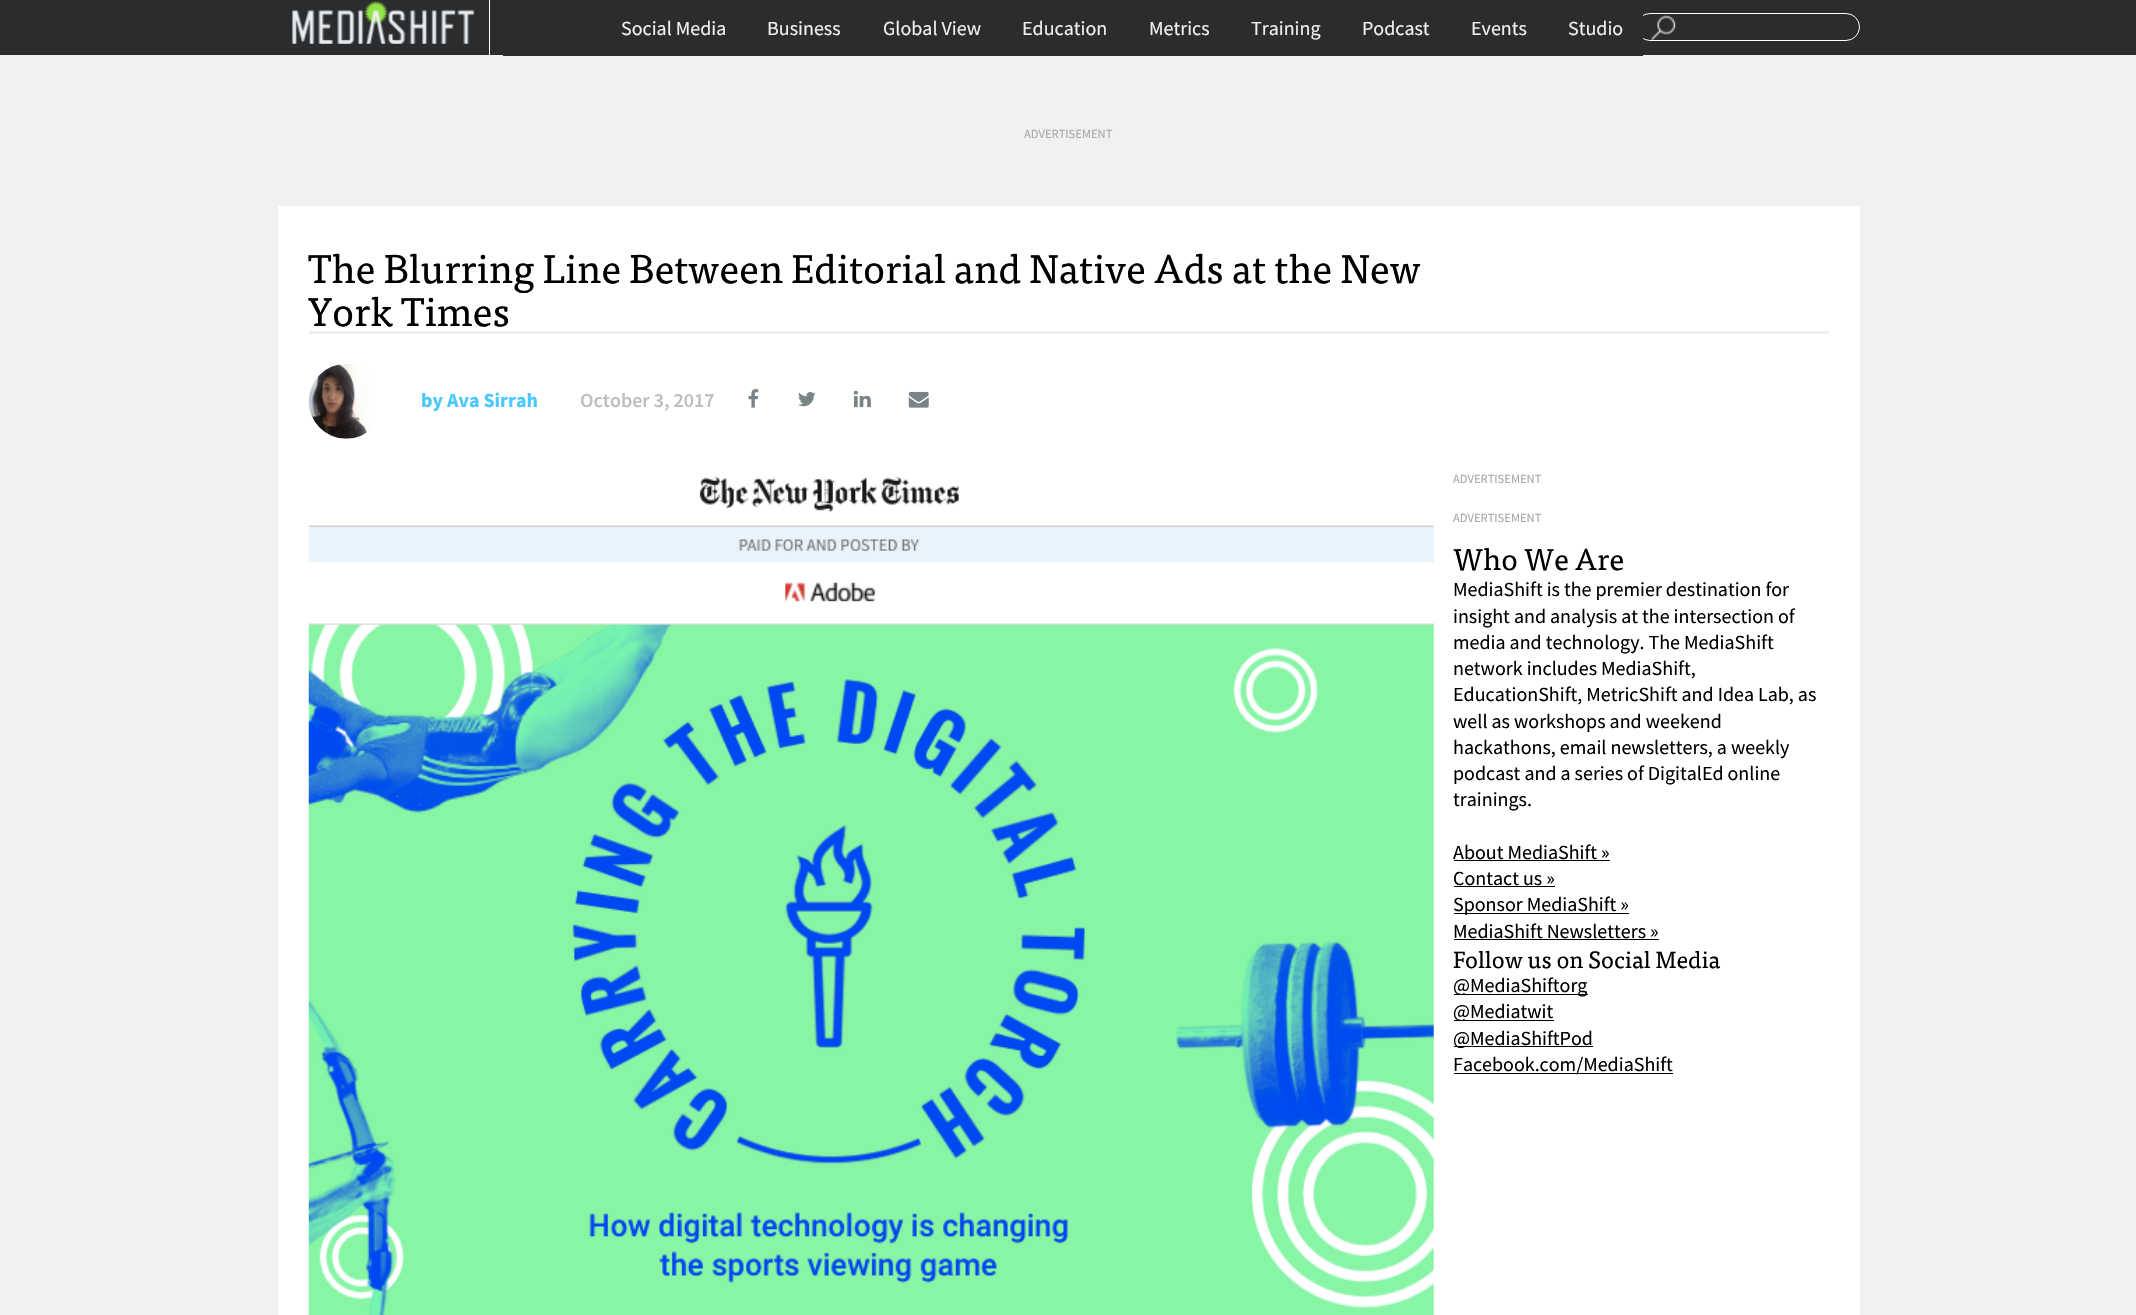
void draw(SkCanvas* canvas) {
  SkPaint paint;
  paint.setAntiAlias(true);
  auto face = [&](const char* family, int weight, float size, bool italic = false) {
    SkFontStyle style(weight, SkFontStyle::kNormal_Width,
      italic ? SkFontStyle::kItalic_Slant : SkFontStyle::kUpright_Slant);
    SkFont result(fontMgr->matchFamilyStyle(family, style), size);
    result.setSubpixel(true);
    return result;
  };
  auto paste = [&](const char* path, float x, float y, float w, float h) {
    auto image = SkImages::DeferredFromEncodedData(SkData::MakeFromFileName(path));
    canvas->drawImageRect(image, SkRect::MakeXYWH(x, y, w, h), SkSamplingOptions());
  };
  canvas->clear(0xfff1f1f1);
  paint.setColor(0xff2b2c2d);
  canvas->drawRect(SkRect::MakeXYWH(0, 0, 2136, 55), paint);
  paint.setColor(0xffffffff);
  canvas->drawRect(SkRect::MakeXYWH(489, 0, 1, 55), paint);
  paste("img/1.png", 292, 1, 183, 43);
  paste("img/2.png", 1651, 15, 25, 25);
  paint.setStroke(true);
  paint.setStrokeWidth(1);
  canvas->drawRoundRect(SkRect::MakeXYWH(1636.5f, 13.5f, 223, 27), 13.5f, 13.5f, paint);
  paint.setStroke(false);
  {
    const struct { float x, y, w, h; SkColor color; } items[] = {
      {503, 15, 1140, 41, 0xff2b2c2d},
      {278, 206, 1582, 1109, 0xffffffff},
      {309, 331, 1520, 3, 0xffedf0f2},
    };
    for (auto [x, y, w, h, color] : items) {
      paint.setColor(color);
      canvas->drawRect(SkRect::MakeXYWH(x, y, w, h), paint);
    }
  }
  paste("img/3.png", 308, 364, 66, 75);
  paste("img/4.png", 748, 389, 11, 19);
  paste("img/5.png", 798, 392, 18, 15);
  paste("img/6.png", 853, 390, 18, 18);
  paste("img/7.png", 908, 391, 21, 17);
  paste("img/8.png", 308, 476, 1126, 839);
  {
    const struct { float x, y, w, h; SkColor color; } items[] = {
      {1454, 860, 156, 1, 0xff000000},
      {1454, 886, 101, 1, 0xff000000},
      {1454, 913, 175, 1, 0xff000000},
      {1454, 939, 205, 1, 0xff000000},
      {1454, 994, 134, 1, 0xff000000},
      {1454, 1020, 100, 1, 0xff000000},
      {1454, 1046, 139, 1, 0xff000000},
      {1454, 1073, 219, 1, 0xff000000},
    };
    for (auto [x, y, w, h, color] : items) {
      paint.setColor(color);
      canvas->drawRect(SkRect::MakeXYWH(x, y, w, h), paint);
    }
  }
  auto f0 = face("Source Sans Pro", 400, 20);
  paint.setColor(0xfff0efea);
  {
    const struct { const char* s; float x, y; } items[] = {
      {"Social Media", 621, 35},
      {"Business", 767, 35},
      {"Global View", 883, 35},
      {"Education", 1022, 35},
      {"Metrics", 1149, 35},
      {"Training", 1251, 35},
      {"Podcast", 1362, 35},
      {"Events", 1471, 35},
      {"Studio", 1568, 35},
    };
    for (auto [s, x, y] : items) {
      canvas->drawString(s, x, y, f0, paint);
    }
  }
  auto f1 = face("Source Sans Pro", 400, 12.5f);
  paint.setColor(0xffa9a9a9);
  canvas->drawString("ADVERTISEMENT", 1024, 138, f1, paint);
  auto f2 = face("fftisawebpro", 400, 40);
  paint.setColor(0xff000000);
  canvas->drawString("The Blurring Line Between Editorial and Native Ads at the New", 308, 283, f2, paint);
  canvas->drawString("York Times", 308, 326, f2, paint);
  auto f3 = face("Source Sans Pro", 700, 20);
  paint.setColor(0xff4ac8ff);
  canvas->drawString("by", 421, 407, f3, paint);
  canvas->drawString("Ava Sirrah", 447, 407, f3, paint);
  auto f4 = face("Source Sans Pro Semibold", 600, 20);
  paint.setColor(0xffbbbfc0);
  canvas->drawString("October 3, 2017", 580, 407, f4, paint);
  paint.setColor(0xffa9a9a9);
  canvas->drawString("ADVERTISEMENT", 1453, 483, f1, paint);
  canvas->drawString("ADVERTISEMENT", 1453, 522, f1, paint);
  auto f5 = face("fftisawebpro", 400, 30);
  paint.setColor(0xff000000);
  canvas->drawString("Who We Are", 1453, 570, f5, paint);
  {
    const struct { const char* s; float x, y; } items[] = {
      {"MediaShift is the premier destination for", 1453, 596},
      {"insight and analysis at the intersection of", 1453, 623},
      {"media and technology. The MediaShift", 1453, 649},
      {"network includes MediaShift,", 1453, 675},
      {"EducationShift, MetricShift and Idea Lab, as", 1453, 701},
      {"well as workshops and weekend", 1453, 728},
      {"hackathons, email newsletters, a weekly", 1453, 754},
      {"podcast and a series of DigitalEd online", 1453, 780},
      {"trainings.", 1453, 806},
      {"About MediaShift »", 1453, 859},
      {"Contact us »", 1453, 885},
      {"Sponsor MediaShift »", 1453, 911},
      {"MediaShift Newsletters »", 1453, 938},
    };
    for (auto [s, x, y] : items) {
      canvas->drawString(s, x, y, f0, paint);
    }
  }
  auto f6 = face("fftisawebpro", 400, 23.4f);
  canvas->drawString("Follow us on Social Media", 1453, 968, f6, paint);
  {
    const struct { const char* s; float x, y; } items[] = {
      {"@MediaShiftorg", 1453, 992},
      {"@Mediatwit", 1453, 1018},
      {"@MediaShiftPod", 1453, 1045},
      {"Facebook.com/MediaShift", 1453, 1071},
    };
    for (auto [s, x, y] : items) {
      canvas->drawString(s, x, y, f0, paint);
    }
  }
}
